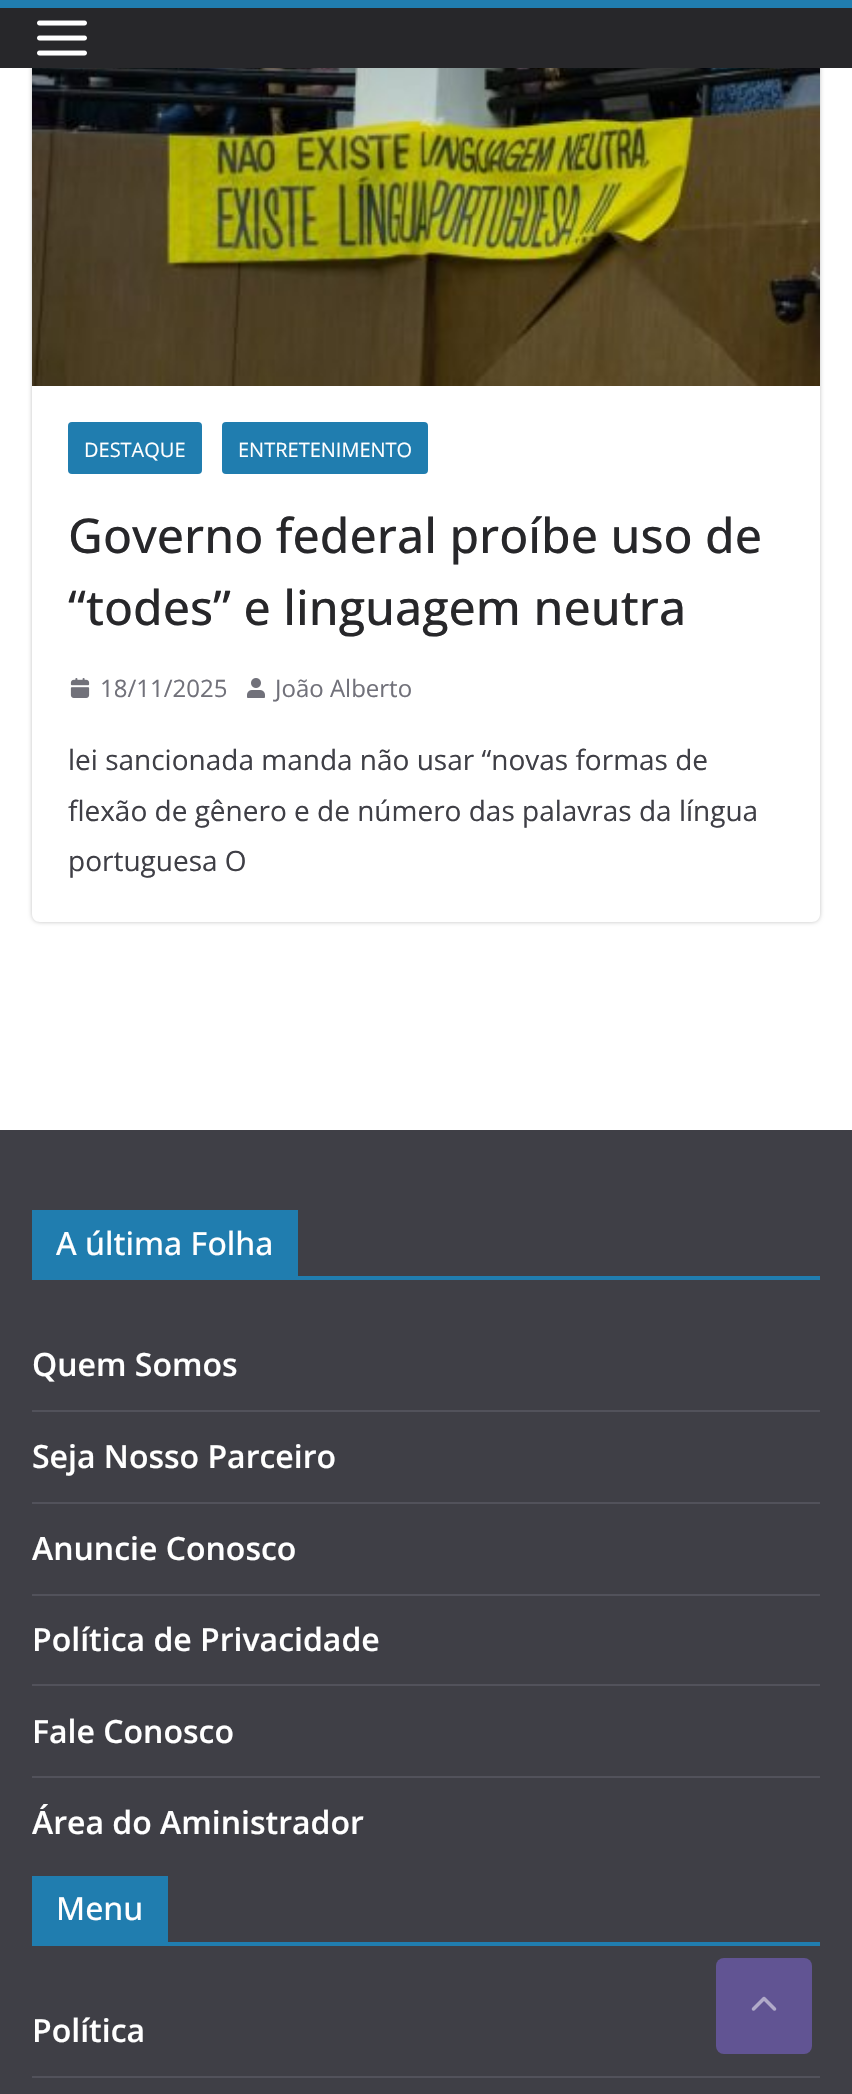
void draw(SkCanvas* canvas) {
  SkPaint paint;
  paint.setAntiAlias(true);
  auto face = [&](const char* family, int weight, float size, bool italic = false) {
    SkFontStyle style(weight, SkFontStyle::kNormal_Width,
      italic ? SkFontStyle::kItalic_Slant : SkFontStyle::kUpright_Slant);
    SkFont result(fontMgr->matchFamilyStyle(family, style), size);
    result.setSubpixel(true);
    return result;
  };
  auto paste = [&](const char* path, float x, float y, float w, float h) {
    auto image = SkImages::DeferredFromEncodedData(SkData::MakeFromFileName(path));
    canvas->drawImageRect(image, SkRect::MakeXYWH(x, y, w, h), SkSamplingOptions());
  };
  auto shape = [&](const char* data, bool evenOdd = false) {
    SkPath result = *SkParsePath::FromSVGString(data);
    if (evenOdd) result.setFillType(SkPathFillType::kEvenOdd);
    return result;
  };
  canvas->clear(0xffffffff);
  canvas->save();
  canvas->clipPath(shape("M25 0H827V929H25ZM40-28H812C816.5-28 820-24.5 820-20V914C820 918.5 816.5 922 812 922H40C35.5 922 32 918.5 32 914V-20C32-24.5 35.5-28 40-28Z", true), true);
  paint.setColor(0x3d000000);
  paint.setMaskFilter(SkMaskFilter::MakeBlur(kNormal_SkBlurStyle, 2));
  canvas->drawRoundRect(SkRect::MakeXYWH(32, -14, 788, 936), 8, 8, paint);
  paint.setMaskFilter(nullptr);
  canvas->restore();
  paint.setColor(0xff27272a);
  canvas->drawRect(SkRect::MakeXYWH(0, 8, 852, 60), paint);
  paint.setColor(0xff207daf);
  canvas->drawRect(SkRect::MakeXYWH(0, 0, 852, 8), paint);
  paste("img/1.png", 37, 20, 50, 36);
  paste("img/2.png", 32, 68, 788, 318);
  canvas->drawRoundRect(SkRect::MakeXYWH(68, 422, 134, 52), 4, 4, paint);
  canvas->drawRoundRect(SkRect::MakeXYWH(222, 422, 206, 52), 4, 4, paint);
  paste("img/3.png", 70, 678, 20, 20);
  paste("img/4.png", 247, 678, 18, 20);
  {
    const struct { float x, y, w, h; SkColor color; } items[] = {
      {0, 1130, 852, 964, 0xff3f3f46},
      {32, 1276, 788, 4, 0xff207daf},
      {32, 1210, 266, 66, 0xff207daf},
      {32, 1410, 788, 2, 0xff52525b},
      {32, 1502, 788, 2, 0xff52525b},
      {32, 1594, 788, 2, 0xff52525b},
      {32, 1684, 788, 2, 0xff52525b},
      {32, 1776, 788, 2, 0xff52525b},
      {32, 1942, 788, 4, 0xff207daf},
      {32, 1876, 136, 66, 0xff207daf},
      {32, 2076, 788, 2, 0xff52525b},
    };
    for (auto [x, y, w, h, color] : items) {
      paint.setColor(color);
      canvas->drawRect(SkRect::MakeXYWH(x, y, w, h), paint);
    }
  }
  paint.setColor(0xff615493);
  canvas->drawRoundRect(SkRect::MakeXYWH(716, 1958, 96, 96), 8, 8, paint);
  paste("img/5.png", 751, 1996, 26, 15);
  auto f0 = face("Open Sans", 400, 20);
  paint.setColor(0xffffffff);
  canvas->drawString("DESTAQUE", 84, 457, f0, paint);
  canvas->drawString("ENTRETENIMENTO", 238, 457, f0, paint);
  auto f1 = face("Open Sans", 500, 48);
  paint.setColor(0xff27272a);
  canvas->drawString("Governo federal proíbe uso de", 68, 553, f1, paint);
  canvas->drawString("“todes” e linguagem neutra", 68, 625, f1, paint);
  auto f2 = face("Open Sans", 400, 24);
  paint.setColor(0xff71717a);
  canvas->drawString("18/11/2025", 100, 697, f2, paint);
  canvas->drawString("João Alberto", 275, 697, f2, paint);
  auto f3 = face("Open Sans", 400, 28);
  paint.setColor(0xff3f3f46);
  {
    const struct { const char* s; float x, y; } items[] = {
      {"lei sancionada manda não usar “novas formas de", 68, 770},
      {"flexão de gênero e de número das palavras da língua", 68, 821},
      {"portuguesa O", 68, 871},
    };
    for (auto [s, x, y] : items) {
      canvas->drawString(s, x, y, f3, paint);
    }
  }
  auto f4 = face("Open Sans", 500, 32);
  paint.setColor(0xffffffff);
  canvas->drawString("A última Folha", 56, 1255, f4, paint);
  auto f5 = face("Open Sans", 600, 32);
  {
    const struct { const char* s; float x, y; } items[] = {
      {"Quem Somos", 32, 1376},
      {"Seja Nosso Parceiro", 32, 1468},
      {"Anuncie Conosco", 32, 1560},
      {"Política de Privacidade", 32, 1651},
      {"Fale Conosco", 32, 1743},
      {"Área do Aministrador", 32, 1834},
    };
    for (auto [s, x, y] : items) {
      canvas->drawString(s, x, y, f5, paint);
    }
  }
  canvas->drawString("Menu", 56, 1920, f4, paint);
  canvas->drawString("Política", 32, 2042, f5, paint);
}
